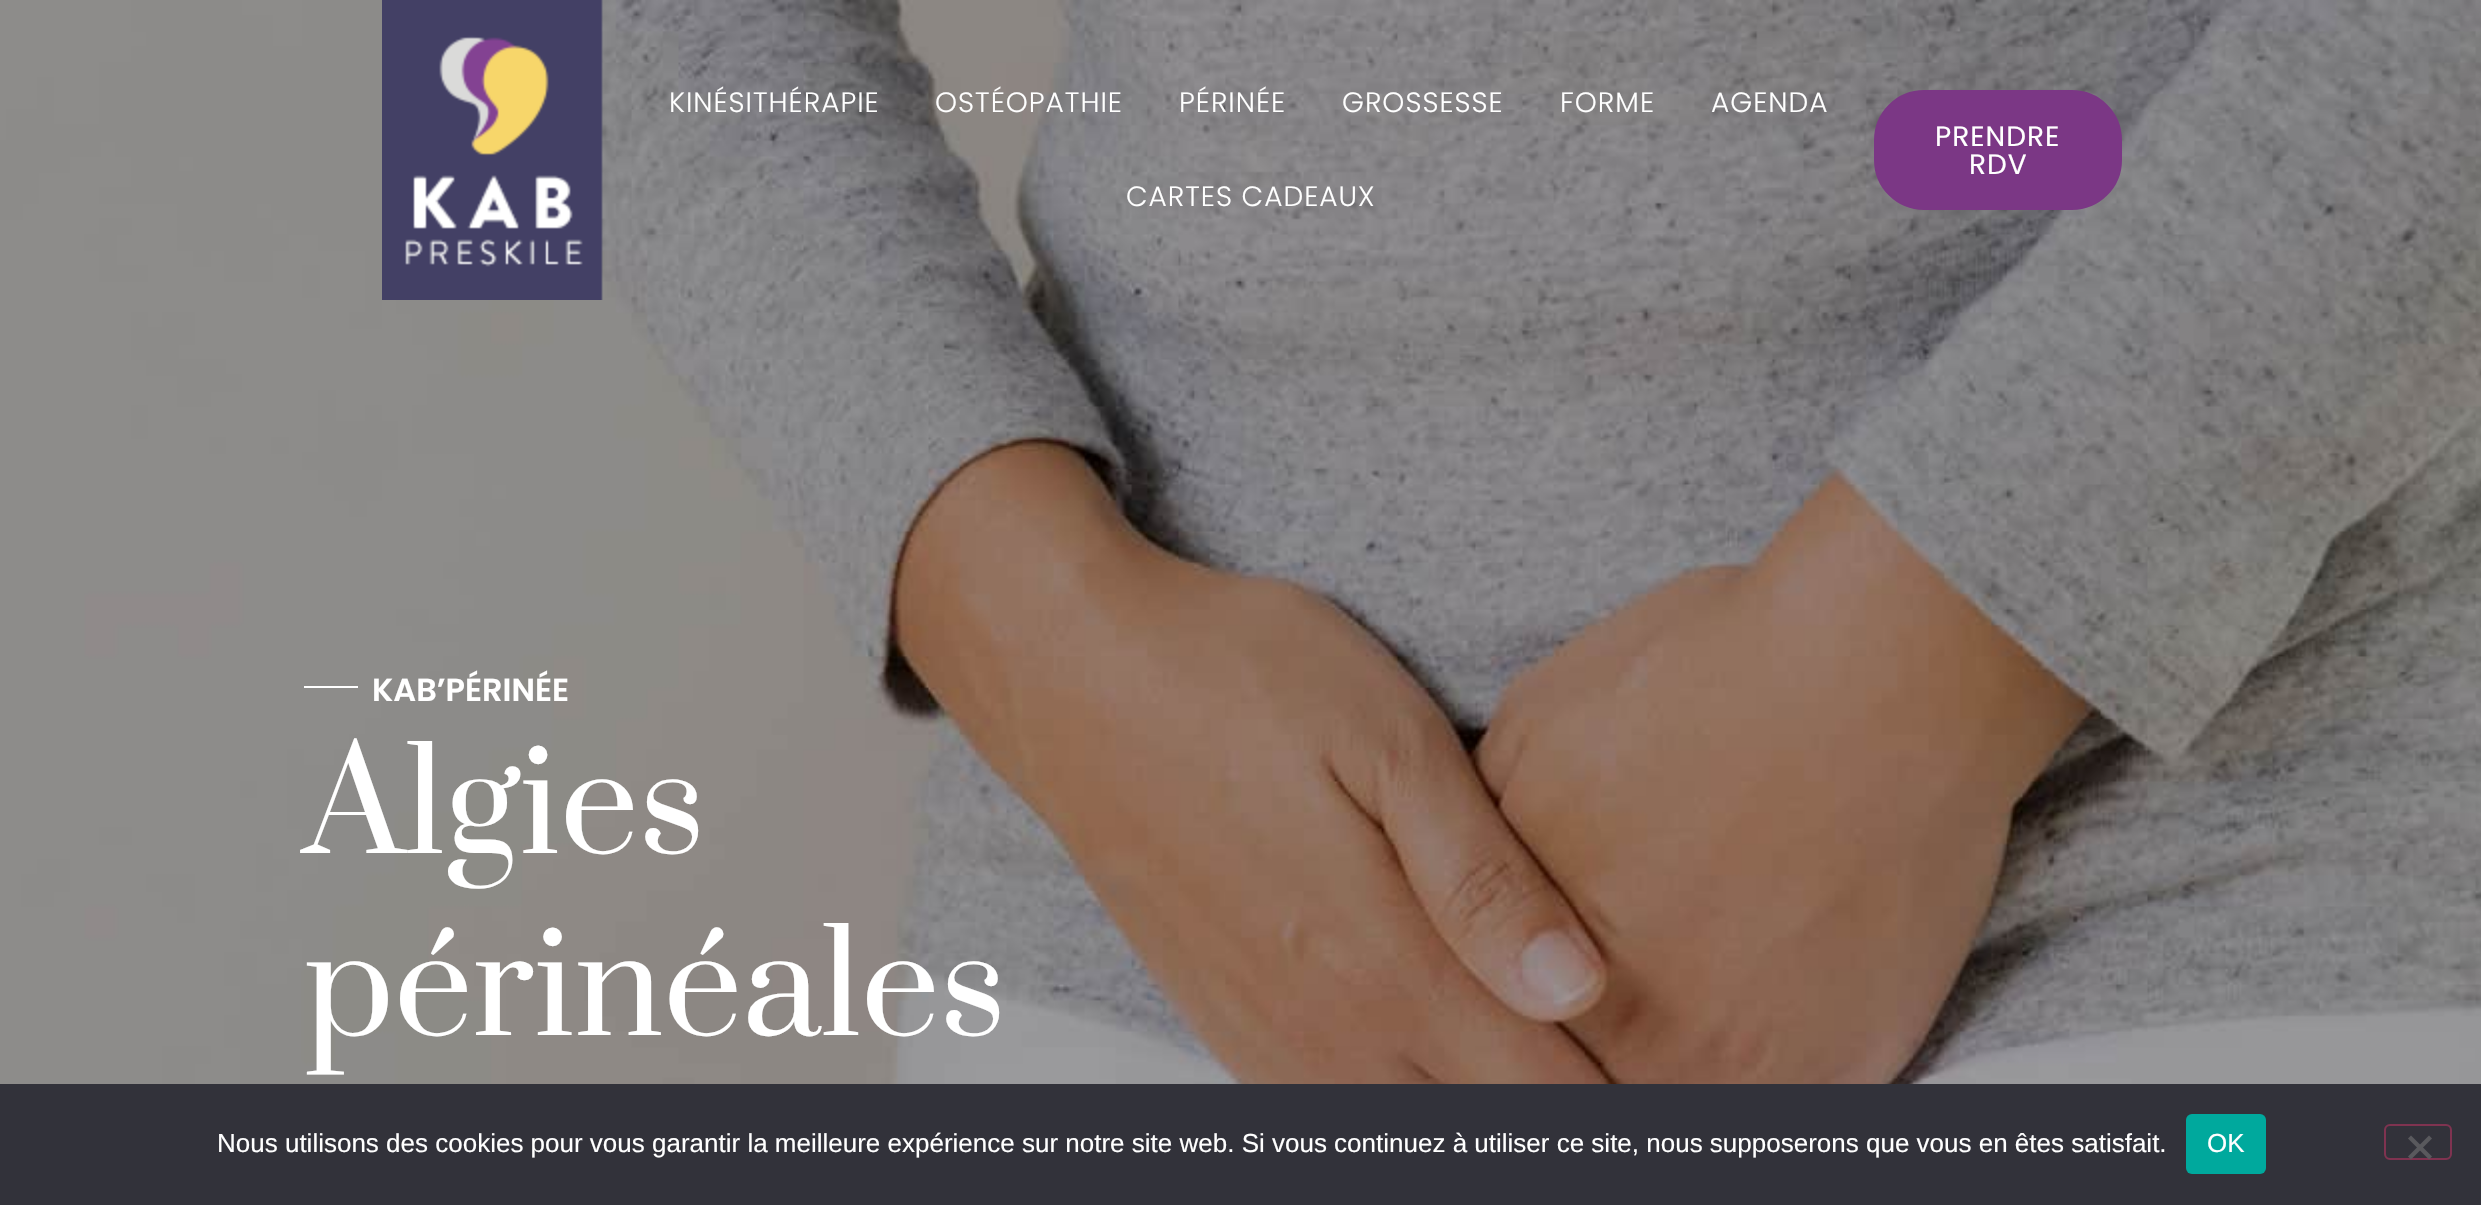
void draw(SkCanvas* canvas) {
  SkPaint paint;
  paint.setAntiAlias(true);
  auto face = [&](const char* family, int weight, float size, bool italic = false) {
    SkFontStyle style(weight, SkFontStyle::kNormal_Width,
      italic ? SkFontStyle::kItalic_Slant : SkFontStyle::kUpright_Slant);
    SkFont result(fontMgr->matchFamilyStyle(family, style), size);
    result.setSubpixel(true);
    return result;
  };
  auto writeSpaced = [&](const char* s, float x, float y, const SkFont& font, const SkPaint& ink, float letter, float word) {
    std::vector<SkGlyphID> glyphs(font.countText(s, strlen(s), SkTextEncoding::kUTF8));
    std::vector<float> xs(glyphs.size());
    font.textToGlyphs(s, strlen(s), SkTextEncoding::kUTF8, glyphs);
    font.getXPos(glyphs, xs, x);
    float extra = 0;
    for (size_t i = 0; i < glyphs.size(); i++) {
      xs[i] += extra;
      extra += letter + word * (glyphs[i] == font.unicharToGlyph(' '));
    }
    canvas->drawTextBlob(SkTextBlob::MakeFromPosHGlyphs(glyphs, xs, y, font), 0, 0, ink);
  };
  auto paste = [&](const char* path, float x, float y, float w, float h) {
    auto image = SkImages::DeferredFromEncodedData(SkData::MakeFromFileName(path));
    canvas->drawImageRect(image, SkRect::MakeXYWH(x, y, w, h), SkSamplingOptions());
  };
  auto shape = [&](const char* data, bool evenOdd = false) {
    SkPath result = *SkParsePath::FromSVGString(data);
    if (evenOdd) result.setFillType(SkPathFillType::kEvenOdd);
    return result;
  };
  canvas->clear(0xffffffff);
  paste("img/2.png", 0, 0, 2481, 1084);
  paste("img/1.png", 382, 0, 221, 300);
  paint.setColor(0xff7b3785);
  canvas->drawRoundRect(SkRect::MakeXYWH(1875, 91, 246, 118), 49, 49, paint);
  paint.setStroke(true);
  paint.setStrokeWidth(2);
  canvas->drawRoundRect(SkRect::MakeXYWH(1875, 91, 246, 118), 49, 49, paint);
  paint.setStroke(false);
  paint.setColor(0xffffffff);
  canvas->drawRect(SkRect::MakeXYWH(304, 686, 54, 2), paint);
  paint.setColor(0xff32323a);
  canvas->drawRect(SkRect::MakeXYWH(0, 1084, 2481, 121), paint);
  paint.setColor(0xff00a99d);
  canvas->drawRoundRect(SkRect::MakeXYWH(2186, 1114, 80, 60), 6, 6, paint);
  paint.setStroke(true);
  paint.setColor(0xff7f3350);
  canvas->drawRoundRect(SkRect::MakeXYWH(2385, 1125, 66, 34), 5, 5, paint);
  paint.setStroke(false);
  paint.setColor(0xff59595d);
  canvas->drawPath(shape("M2429 1135.5L2432 1138.5L2411 1159.5L2408 1156.5Z"), paint);
  canvas->drawPath(shape("M2408 1138.5L2411 1135.5L2432 1156.5L2429 1159.5Z"), paint);
  auto f0 = face("Poppins", 300, 28);
  paint.setColor(0xffffffff);
  {
    const struct { const char* s; float x, y; } items[] = {
      {"KINÉSITHÉRAPIE", 669, 112},
      {"OSTÉOPATHIE", 935, 112},
      {"PÉRINÉE", 1179, 112},
      {"GROSSESSE", 1342, 112},
      {"FORME", 1560, 112},
      {"AGENDA", 1711, 112},
      {"CARTES CADEAUX", 1126, 206},
    };
    for (auto [s, x, y] : items) {
      writeSpaced(s, x, y, f0, paint, 1, 0);
    }
  }
  auto f1 = face("Poppins", 400, 28);
  writeSpaced("PRENDRE", 1935, 146, f1, paint, 1, 0);
  writeSpaced("RDV", 1969, 174, f1, paint, 1, 0);
  auto f2 = face("Poppins", 600, 32);
  canvas->drawString("KAB’PÉRINÉE", 372, 701, f2, paint);
  auto f3 = face("Prata", 400, 140);
  canvas->drawString("Algies", 304, 853, f3, paint);
  canvas->drawString("périnéales", 304, 1035, f3, paint);
  auto f4 = face("Liberation Sans", 400, 26);
  canvas->drawString("Nous utilisons des cookies pour vous garantir la meilleure expérience sur notre site web. Si vous continuez à utiliser ce site, nous supposerons que vous en êtes satisfait.", 217, 1152, f4, paint);
  canvas->drawString("OK", 2207, 1152, f4, paint);
}
